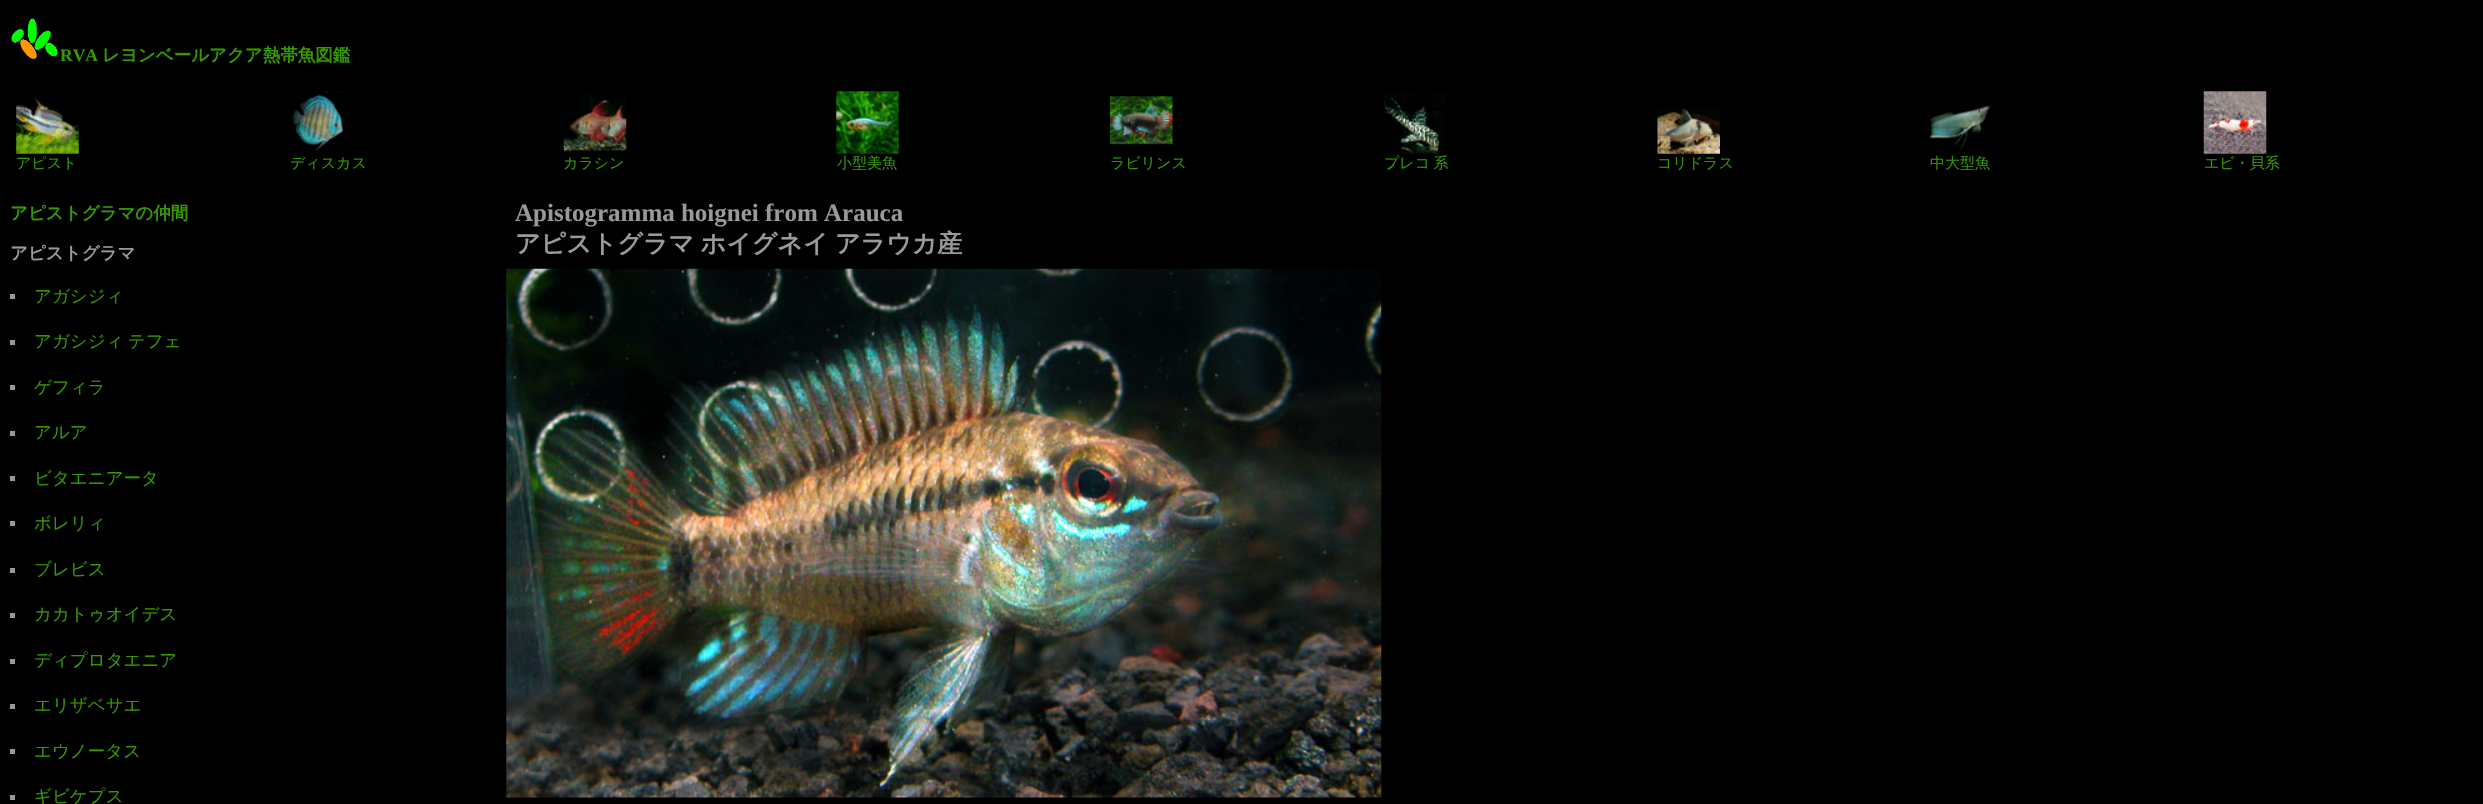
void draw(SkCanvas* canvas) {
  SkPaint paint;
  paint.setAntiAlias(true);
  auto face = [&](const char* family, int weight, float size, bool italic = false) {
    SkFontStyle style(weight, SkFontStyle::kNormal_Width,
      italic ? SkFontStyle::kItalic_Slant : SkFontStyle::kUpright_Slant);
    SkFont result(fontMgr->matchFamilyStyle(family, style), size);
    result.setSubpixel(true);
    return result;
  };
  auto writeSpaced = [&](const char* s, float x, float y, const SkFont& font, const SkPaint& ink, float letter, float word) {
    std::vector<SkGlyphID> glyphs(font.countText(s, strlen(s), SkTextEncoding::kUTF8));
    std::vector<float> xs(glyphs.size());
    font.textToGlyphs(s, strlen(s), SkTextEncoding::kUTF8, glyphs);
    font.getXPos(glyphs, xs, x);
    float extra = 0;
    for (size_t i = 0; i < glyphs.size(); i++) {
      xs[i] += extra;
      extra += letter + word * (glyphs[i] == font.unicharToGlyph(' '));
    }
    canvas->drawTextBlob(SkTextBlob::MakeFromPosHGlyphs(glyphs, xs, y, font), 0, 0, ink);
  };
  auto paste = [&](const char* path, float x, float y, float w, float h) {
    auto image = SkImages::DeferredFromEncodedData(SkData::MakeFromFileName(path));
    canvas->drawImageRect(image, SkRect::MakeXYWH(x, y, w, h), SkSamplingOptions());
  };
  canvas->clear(0xff000000);
  paste("img/1.png", 11, 18, 47, 41);
  paste("img/2.png", 16, 98, 63, 56);
  paste("img/3.png", 292, 91, 52, 60);
  paste("img/4.png", 563, 95, 64, 57);
  paste("img/5.png", 836, 91, 63, 63);
  paste("img/6.png", 1110, 95, 63, 50);
  paste("img/7.png", 1383, 91, 63, 63);
  paste("img/8.png", 1657, 108, 63, 46);
  paste("img/9.png", 1930, 105, 63, 45);
  paste("img/10.png", 2203, 91, 64, 63);
  {
    const struct { float x, y, w, h; SkColor color; } items[] = {
      {10, 294, 5, 5, 0xff999999},
      {10, 340, 5, 5, 0xff999999},
      {10, 385, 5, 5, 0xff999999},
      {10, 431, 5, 5, 0xff999999},
      {10, 476, 5, 5, 0xff999999},
      {10, 521, 5, 5, 0xff999999},
      {10, 568, 5, 5, 0xff999999},
      {10, 613, 5, 5, 0xff999999},
      {10, 659, 5, 5, 0xff999999},
      {10, 704, 5, 5, 0xff999999},
      {10, 749, 5, 5, 0xff999999},
      {10, 795, 5, 5, 0xff999999},
    };
    for (auto [x, y, w, h, color] : items) {
      paint.setColor(color);
      canvas->drawRect(SkRect::MakeXYWH(x, y, w, h), paint);
    }
  }
  paste("img/11.png", 506, 268, 876, 530);
  auto f0 = face("Liberation Serif", 700, 17.5f);
  paint.setColor(0xff339900);
  canvas->drawString("RVA", 60, 61, f0, paint);
  auto f1 = face("WenQuanYi Zen Hei", 700, 17.5f);
  canvas->drawString("レヨンベールアクア熱帯魚図鑑", 102, 61, f1, paint);
  auto f2 = face("WenQuanYi Zen Hei", 500, 15);
  {
    const struct { const char* s; float x, y; } items[] = {
      {"アピスト", 16, 168},
      {"ディスカス", 290, 168},
      {"カラシン", 563, 168},
      {"小型美魚", 837, 168},
      {"ラビリンス", 1110, 168},
    };
    for (auto [s, x, y] : items) {
      canvas->drawString(s, x, y, f2, paint);
    }
  }
  writeSpaced("プレコ 系", 1384, 168, f2, paint, 0, -1);
  {
    const struct { const char* s; float x, y; } items[] = {
      {"コリドラス", 1657, 168},
      {"中大型魚", 1930, 168},
      {"エビ・貝系", 2204, 168},
    };
    for (auto [s, x, y] : items) {
      canvas->drawString(s, x, y, f2, paint);
    }
  }
  canvas->drawString("アピストグラマの仲間", 10, 219, f1, paint);
  paint.setColor(0xff999999);
  canvas->drawString("アピストグラマ", 10, 259, f1, paint);
  auto f3 = face("WenQuanYi Zen Hei", 500, 17.5f);
  paint.setColor(0xff339900);
  canvas->drawString("アガシジィ", 34, 302, f3, paint);
  writeSpaced("アガシジィ テフェ", 34, 347, f3, paint, 0, -1);
  {
    const struct { const char* s; float x, y; } items[] = {
      {"ゲフィラ", 34, 393},
      {"アルア", 34, 438},
      {"ビタエニアータ", 34, 484},
      {"ボレリィ", 34, 529},
      {"ブレビス", 34, 575},
      {"カカトゥオイデス", 34, 620},
      {"ディプロタエニア", 34, 666},
      {"エリザベサエ", 34, 711},
      {"エウノータス", 34, 757},
      {"ギビケプス", 34, 802},
    };
    for (auto [s, x, y] : items) {
      canvas->drawString(s, x, y, f3, paint);
    }
  }
  auto f4 = face("Liberation Serif", 700, 25);
  paint.setColor(0xff999999);
  canvas->drawString("Apistogramma hoignei from Arauca", 515, 221, f4, paint);
  auto f5 = face("WenQuanYi Zen Hei", 700, 25);
  writeSpaced("アピストグラマ ホイグネイ アラウカ産", 515, 252, f5, paint, 0, -1);
}
